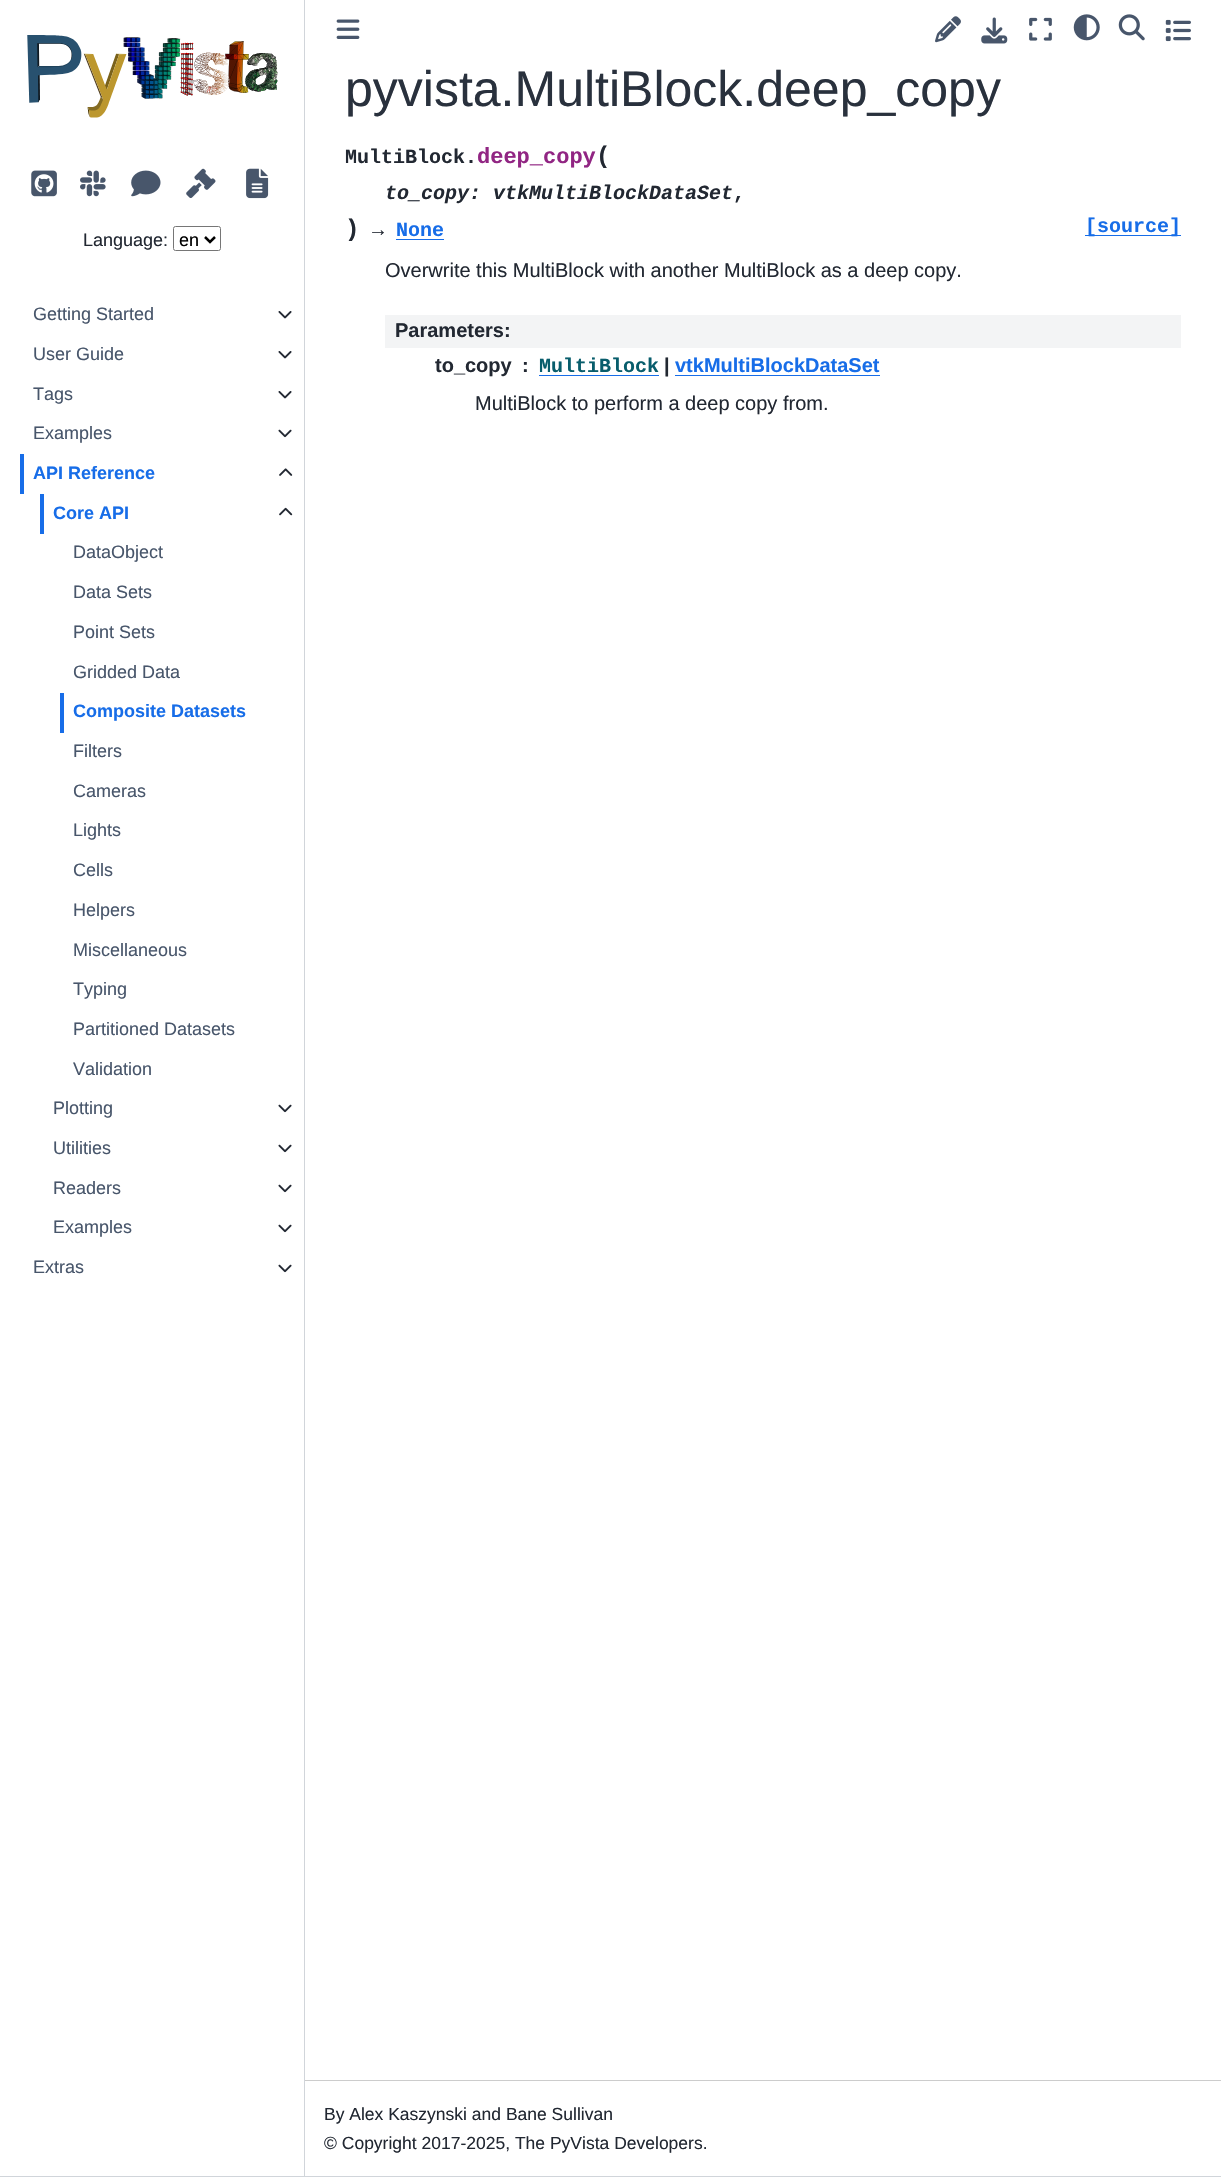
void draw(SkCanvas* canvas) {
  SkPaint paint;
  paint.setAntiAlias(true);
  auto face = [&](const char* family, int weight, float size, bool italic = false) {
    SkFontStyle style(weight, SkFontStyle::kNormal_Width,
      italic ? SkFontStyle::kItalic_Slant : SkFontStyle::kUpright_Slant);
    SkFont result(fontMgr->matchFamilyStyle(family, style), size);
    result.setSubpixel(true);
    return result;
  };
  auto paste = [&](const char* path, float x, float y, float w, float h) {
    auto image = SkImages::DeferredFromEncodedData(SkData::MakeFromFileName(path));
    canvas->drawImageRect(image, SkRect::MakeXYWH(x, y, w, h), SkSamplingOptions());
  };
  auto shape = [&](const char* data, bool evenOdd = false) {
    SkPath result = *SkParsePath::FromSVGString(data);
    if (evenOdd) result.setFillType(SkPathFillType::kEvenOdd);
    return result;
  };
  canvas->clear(0xffffffff);
  paint.setColor(0xffd1d5da);
  canvas->drawRect(SkRect::MakeXYWH(304, 0, 1, 2176), paint);
  paste("img/1.png", 27, 35, 251, 83);
  paste("img/2.png", 31, 170, 26, 27);
  paste("img/3.png", 80, 170, 26, 27);
  paste("img/4.png", 131, 170, 30, 27);
  paste("img/5.png", 186, 168, 30, 31);
  paste("img/6.png", 246, 168, 23, 31);
  paint.setStroke(true);
  paint.setStrokeWidth(1);
  paint.setColor(0xff767676);
  canvas->drawRoundRect(SkRect::MakeXYWH(173.5f, 226.5f, 47, 24), 2, 2, paint);
  paint.setStrokeWidth(2.5f);
  paint.setColor(0xff000000);
  canvas->drawPath(shape("M205 237L210 242L215 237"), paint);
  paste("img/7.png", 278, 311, 14, 8);
  paste("img/7.png", 278, 351, 14, 8);
  paste("img/7.png", 278, 391, 14, 8);
  paste("img/8.png", 278, 429, 14, 9);
  paint.setStroke(false);
  paint.setColor(0xff176de8);
  canvas->drawRect(SkRect::MakeXYWH(20, 454, 4, 40), paint);
  paste("img/9.png", 279, 468, 14, 8);
  canvas->drawRect(SkRect::MakeXYWH(40, 494, 4, 40), paint);
  paste("img/10.png", 279, 507, 14, 9);
  canvas->drawRect(SkRect::MakeXYWH(60, 693, 4, 40), paint);
  paste("img/8.png", 278, 1104, 14, 9);
  paste("img/8.png", 278, 1144, 14, 9);
  paste("img/8.png", 278, 1184, 14, 9);
  paste("img/8.png", 278, 1224, 14, 9);
  paste("img/8.png", 278, 1264, 14, 9);
  paste("img/11.png", 336, 19, 24, 20);
  paste("img/12.png", 935, 16, 26, 27);
  paste("img/13.png", 981, 17, 27, 27);
  paste("img/14.png", 1029, 17, 23, 24);
  paste("img/15.png", 1073, 14, 27, 27);
  paste("img/16.png", 1118, 14, 27, 27);
  paste("img/17.png", 1165, 19, 26, 23);
  {
    const struct { float x, y, w, h; SkColor color; } items[] = {
      {396, 239, 48, 1, 0xff176de8},
      {1085, 235, 96, 1, 0xff176de8},
      {385, 315, 796, 33, 0xfff3f4f5},
      {539, 375, 120, 1, 0xff176de8},
      {675, 375, 205, 1, 0xff176de8},
      {305, 2080, 916, 1, 0xffcccccc},
      {0, 2176, 1221, 1, 0xffd1d5da},
    };
    for (auto [x, y, w, h, color] : items) {
      paint.setColor(color);
      canvas->drawRect(SkRect::MakeXYWH(x, y, w, h), paint);
    }
  }
  auto f0 = face("Liberation Sans", 400, 18);
  paint.setColor(0xff222832);
  canvas->drawString("Language:", 83, 246, f0, paint);
  paint.setColor(0xff000000);
  canvas->drawString("en", 179, 246, f0, paint);
  paint.setColor(0xff48566b);
  {
    const struct { const char* s; float x, y; } items[] = {
      {"Getting Started", 33, 320},
      {"User Guide", 33, 360},
      {"Tags", 33, 400},
      {"Examples", 33, 439},
    };
    for (auto [s, x, y] : items) {
      canvas->drawString(s, x, y, f0, paint);
    }
  }
  auto f1 = face("Liberation Sans", 700, 18);
  paint.setColor(0xff176de8);
  canvas->drawString("API Reference", 33, 479, f1, paint);
  canvas->drawString("Core API", 53, 519, f1, paint);
  paint.setColor(0xff48566b);
  {
    const struct { const char* s; float x, y; } items[] = {
      {"DataObject", 73, 558},
      {"Data Sets", 73, 598},
      {"Point Sets", 73, 638},
      {"Gridded Data", 73, 678},
    };
    for (auto [s, x, y] : items) {
      canvas->drawString(s, x, y, f0, paint);
    }
  }
  paint.setColor(0xff176de8);
  canvas->drawString("Composite Datasets", 73, 717, f1, paint);
  paint.setColor(0xff48566b);
  {
    const struct { const char* s; float x, y; } items[] = {
      {"Filters", 73, 757},
      {"Cameras", 73, 797},
      {"Lights", 73, 836},
      {"Cells", 73, 876},
      {"Helpers", 73, 916},
      {"Miscellaneous", 73, 956},
      {"Typing", 73, 995},
      {"Partitioned Datasets", 73, 1035},
      {"Validation", 73, 1075},
      {"Plotting", 53, 1114},
      {"Utilities", 53, 1154},
      {"Readers", 53, 1194},
      {"Examples", 53, 1233},
      {"Extras", 33, 1273},
    };
    for (auto [s, x, y] : items) {
      canvas->drawString(s, x, y, f0, paint);
    }
  }
  auto f2 = face("Liberation Sans", 400, 50);
  paint.setColor(0xff29313d);
  canvas->drawString("pyvista.MultiBlock.deep_copy", 345, 106, f2, paint);
  auto f3 = face("Liberation Mono", 700, 20);
  paint.setColor(0xff222832);
  canvas->drawString("MultiBlock.", 345, 163, f3, paint);
  auto f4 = face("Liberation Mono", 700, 22);
  paint.setColor(0xff912583);
  canvas->drawString("deep_copy", 477, 163, f4, paint);
  auto f5 = face("Liberation Mono", 700, 24);
  paint.setColor(0xff222832);
  canvas->drawString("(", 596, 163, f5, paint);
  auto f6 = face("Liberation Mono", 700, 20, true);
  canvas->drawString("to_copy: vtkMultiBlockDataSet", 385, 199, f6, paint);
  canvas->drawString(",", 733, 199, f3, paint);
  canvas->drawString(")", 345, 236, f5, paint);
  canvas->drawString("→", 372, 236, f3, paint);
  paint.setColor(0xff176de8);
  canvas->drawString("None", 396, 236, f3, paint);
  canvas->drawString("[source]", 1085, 232, f3, paint);
  auto f7 = face("Liberation Sans", 400, 20);
  paint.setColor(0xff222832);
  canvas->drawString("Overwrite this MultiBlock with another MultiBlock as a deep copy.", 385, 277, f7, paint);
  auto f8 = face("Liberation Sans", 700, 20);
  {
    const struct { const char* s; float x, y; } items[] = {
      {"Parameters:", 395, 337},
      {"to_copy", 435, 372},
      {":", 522, 372},
    };
    for (auto [s, x, y] : items) {
      canvas->drawString(s, x, y, f8, paint);
    }
  }
  paint.setColor(0xff085d6c);
  canvas->drawString("MultiBlock", 539, 372, f3, paint);
  paint.setColor(0xff222832);
  canvas->drawString("|", 664, 372, f8, paint);
  paint.setColor(0xff176de8);
  canvas->drawString("vtkMultiBlockDataSet", 675, 372, f8, paint);
  paint.setColor(0xff222832);
  canvas->drawString("MultiBlock to perform a deep copy from.", 475, 410, f7, paint);
  auto f9 = face("Liberation Sans", 400, 17.5f);
  canvas->drawString("By Alex Kaszynski and Bane Sullivan", 324, 2120, f9, paint);
  canvas->drawString("© Copyright 2017-2025, The PyVista Developers.", 324, 2149, f9, paint);
}
